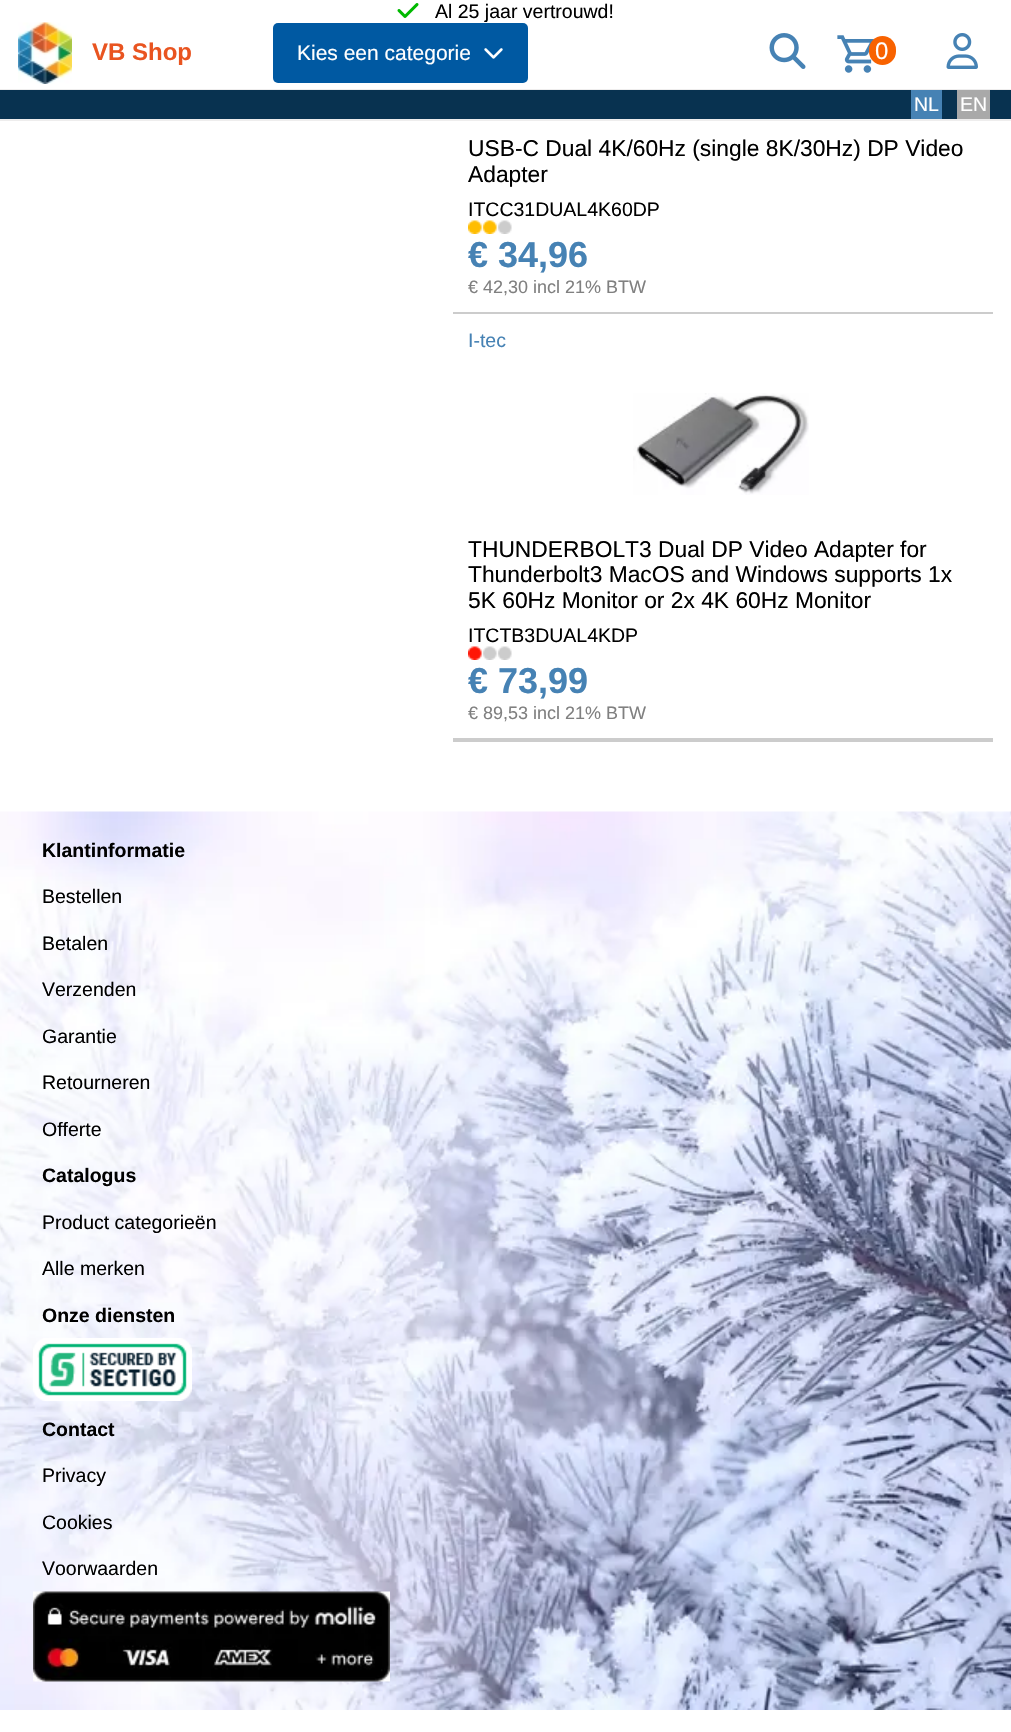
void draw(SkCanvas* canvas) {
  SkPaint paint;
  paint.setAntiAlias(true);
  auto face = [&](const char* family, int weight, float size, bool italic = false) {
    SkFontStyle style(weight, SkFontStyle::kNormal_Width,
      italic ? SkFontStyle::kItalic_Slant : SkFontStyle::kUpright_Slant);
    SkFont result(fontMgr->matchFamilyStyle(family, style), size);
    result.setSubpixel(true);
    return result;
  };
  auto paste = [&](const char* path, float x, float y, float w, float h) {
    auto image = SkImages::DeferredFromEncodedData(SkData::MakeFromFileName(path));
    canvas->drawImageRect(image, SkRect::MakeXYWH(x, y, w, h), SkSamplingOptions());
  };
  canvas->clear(0xffffffff);
  paint.setColor(0xffeeeded);
  canvas->drawRect(SkRect::MakeXYWH(0, 119, 1011, 2), paint);
  paste("img/1.png", 397, 3, 22, 15);
  canvas->drawRect(SkRect::MakeXYWH(0, 89, 1011, 1), paint);
  paste("img/2.png", 18, 22, 54, 62);
  paint.setColor(0xff0059a2);
  canvas->drawRoundRect(SkRect::MakeXYWH(273, 23, 255, 60), 5, 5, paint);
  paste("img/3.png", 484, 48, 19, 11);
  paste("img/4.png", 769, 33, 37, 36);
  paste("img/5.png", 837, 35, 37, 38);
  paint.setColor(0xfff86200);
  canvas->drawRoundRect(SkRect::MakeXYWH(869, 36, 27, 29), 13.5f, 13.5f, paint);
  paste("img/6.png", 946, 33, 32, 36);
  {
    const struct { float x, y, w, h; SkColor color; } items[] = {
      {0, 90, 1011, 29, 0xff083250},
      {911, 90, 31, 29, 0xff4682b4},
      {957, 90, 33, 29, 0xffa9a9a9},
      {453, 312, 540, 2, 0xffcccccc},
    };
    for (auto [x, y, w, h, color] : items) {
      paint.setColor(color);
      canvas->drawRect(SkRect::MakeXYWH(x, y, w, h), paint);
    }
  }
  paste("img/7.png", 468, 220, 44, 14);
  paste("img/8.png", 633, 393, 176, 102);
  paste("img/9.png", 468, 646, 44, 14);
  canvas->drawRect(SkRect::MakeXYWH(453, 738, 540, 4), paint);
  paste("img/10.png", 0, 811, 1011, 899);
  paste("img/11.png", 33, 1338, 159, 63);
  paste("img/12.png", 33, 1591, 357, 91);
  auto f0 = face("Liberation Sans", 400, 19.5f);
  paint.setColor(0xff000000);
  canvas->drawString("Al 25 jaar vertrouwd!", 435, 18, f0, paint);
  auto f1 = face("Liberation Sans", 700, 24);
  paint.setColor(0xffe95420);
  canvas->drawString("VB Shop", 92, 60, f1, paint);
  auto f2 = face("Liberation Sans", 400, 21);
  paint.setColor(0xffffffff);
  canvas->drawString("Kies een categorie", 297, 60, f2, paint);
  auto f3 = face("Liberation Sans", 400, 24);
  canvas->drawString("0", 875, 59, f3, paint);
  canvas->drawString("NL", 914, 111, f0, paint);
  canvas->drawString("EN", 960, 111, f0, paint);
  auto f4 = face("Liberation Sans", 400, 22.8f);
  paint.setColor(0xff000000);
  canvas->drawString("USB-C Dual 4K/60Hz (single 8K/30Hz) DP Video", 468, 156, f4, paint);
  canvas->drawString("Adapter", 468, 182, f4, paint);
  canvas->drawString("ITCC31DUAL4K60DP", 468, 216, f0, paint);
  auto f5 = face("Liberation Sans", 700, 36);
  paint.setColor(0xff4682b4);
  canvas->drawString("€ 34,96", 468, 267, f5, paint);
  auto f6 = face("Liberation Sans", 400, 18);
  paint.setColor(0xff808080);
  canvas->drawString("€ 42,30 incl 21% BTW", 468, 293, f6, paint);
  paint.setColor(0xff4682b4);
  canvas->drawString("I-tec", 468, 347, f0, paint);
  paint.setColor(0xff000000);
  {
    const struct { const char* s; float x, y; } items[] = {
      {"THUNDERBOLT3 Dual DP Video Adapter for", 468, 557},
      {"Thunderbolt3 MacOS and Windows supports 1x", 468, 582},
      {"5K 60Hz Monitor or 2x 4K 60Hz Monitor", 468, 608},
    };
    for (auto [s, x, y] : items) {
      canvas->drawString(s, x, y, f4, paint);
    }
  }
  canvas->drawString("ITCTB3DUAL4KDP", 468, 642, f0, paint);
  paint.setColor(0xff4682b4);
  canvas->drawString("€ 73,99", 468, 693, f5, paint);
  paint.setColor(0xff808080);
  canvas->drawString("€ 89,53 incl 21% BTW", 468, 719, f6, paint);
  auto f7 = face("Liberation Sans", 700, 19.5f);
  paint.setColor(0xff000000);
  canvas->drawString("Klantinformatie", 42, 857, f7, paint);
  {
    const struct { const char* s; float x, y; } items[] = {
      {"Bestellen", 42, 903},
      {"Betalen", 42, 950},
      {"Verzenden", 42, 996},
      {"Garantie", 42, 1043},
      {"Retourneren", 42, 1089},
      {"Offerte", 42, 1136},
    };
    for (auto [s, x, y] : items) {
      canvas->drawString(s, x, y, f0, paint);
    }
  }
  canvas->drawString("Catalogus", 42, 1182, f7, paint);
  canvas->drawString("Product categorieën", 42, 1229, f0, paint);
  canvas->drawString("Alle merken", 42, 1275, f0, paint);
  canvas->drawString("Onze diensten", 42, 1322, f7, paint);
  canvas->drawString("Contact", 42, 1436, f7, paint);
  {
    const struct { const char* s; float x, y; } items[] = {
      {"Privacy", 42, 1482},
      {"Cookies", 42, 1529},
      {"Voorwaarden", 42, 1575},
    };
    for (auto [s, x, y] : items) {
      canvas->drawString(s, x, y, f0, paint);
    }
  }
}
